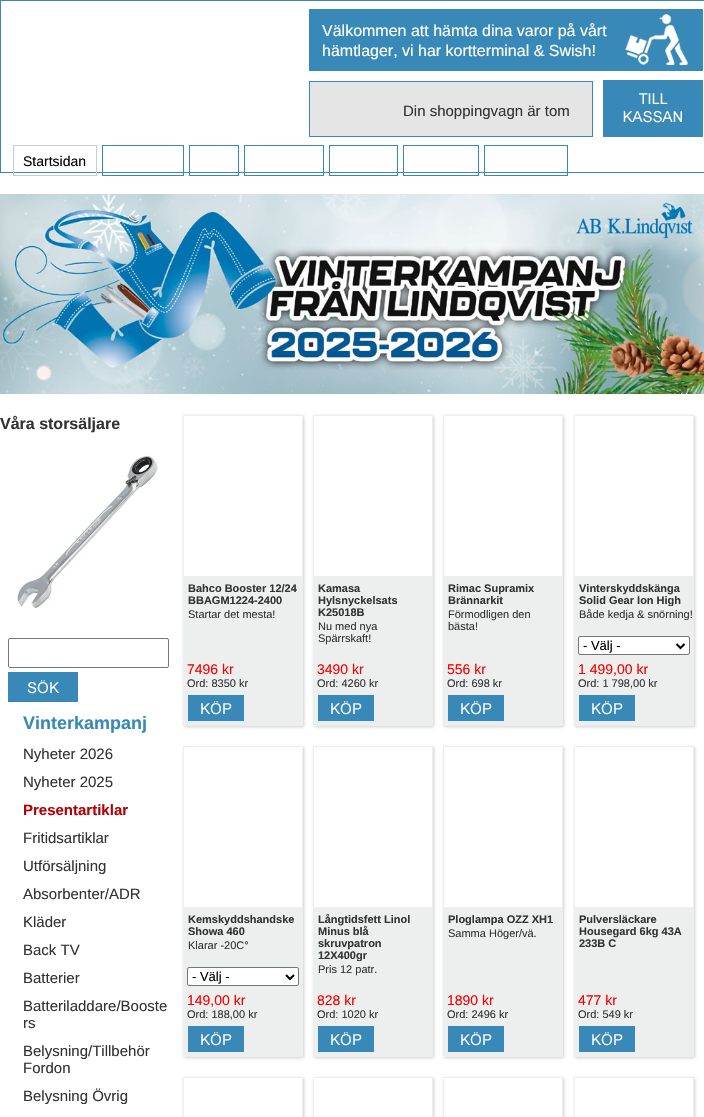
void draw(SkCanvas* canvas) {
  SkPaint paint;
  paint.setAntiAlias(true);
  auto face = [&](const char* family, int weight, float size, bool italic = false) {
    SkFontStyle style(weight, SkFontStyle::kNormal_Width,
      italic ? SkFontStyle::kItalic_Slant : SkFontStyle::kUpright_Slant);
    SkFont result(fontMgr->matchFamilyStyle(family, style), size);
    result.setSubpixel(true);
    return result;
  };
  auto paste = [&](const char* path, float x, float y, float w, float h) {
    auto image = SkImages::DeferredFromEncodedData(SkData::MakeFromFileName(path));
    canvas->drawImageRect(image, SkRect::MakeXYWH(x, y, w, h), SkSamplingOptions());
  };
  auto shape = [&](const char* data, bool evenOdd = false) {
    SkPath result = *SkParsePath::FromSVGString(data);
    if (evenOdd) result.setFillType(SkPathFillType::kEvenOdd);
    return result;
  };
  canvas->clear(0xffffffff);
  paint.setStroke(true);
  paint.setStrokeWidth(1);
  paint.setColor(0xff3989b8);
  canvas->drawRect(SkRect::MakeXYWH(0.5f, 0.5f, 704, 172), paint);
  paint.setStroke(false);
  paint.setColor(0xff3889b8);
  canvas->drawRect(SkRect::MakeXYWH(309, 9, 394, 62), paint);
  paste("img/1.png", 625, 9, 78, 56);
  paint.setColor(0xffe5e5e5);
  canvas->drawRect(SkRect::MakeXYWH(309.5f, 81.5f, 283, 55), paint);
  paint.setStroke(true);
  paint.setColor(0xff3889b8);
  canvas->drawRect(SkRect::MakeXYWH(309.5f, 81.5f, 283, 55), paint);
  paste("img/2.png", 603, 80, 100, 57);
  paint.setColor(0xffcccccc);
  canvas->drawRect(SkRect::MakeXYWH(13.5f, 145.5f, 83, 30), paint);
  paint.setColor(0xff3889b8);
  canvas->drawRect(SkRect::MakeXYWH(102.5f, 145.5f, 81, 30), paint);
  canvas->drawRect(SkRect::MakeXYWH(189.5f, 145.5f, 49, 30), paint);
  canvas->drawRect(SkRect::MakeXYWH(244.5f, 145.5f, 79, 30), paint);
  canvas->drawRect(SkRect::MakeXYWH(329.5f, 145.5f, 68, 30), paint);
  canvas->drawRect(SkRect::MakeXYWH(403.5f, 145.5f, 75, 30), paint);
  canvas->drawRect(SkRect::MakeXYWH(484.5f, 145.5f, 83, 30), paint);
  paste("img/3.png", 0, 194, 704, 200);
  paste("img/4.png", 17, 455, 141, 154);
  paint.setColor(0xff767676);
  canvas->drawRoundRect(SkRect::MakeXYWH(8.5f, 638.5f, 160, 29), 1.5f, 1.5f, paint);
  paste("img/5.png", 8, 672, 70, 30);
  canvas->save();
  canvas->clipPath(shape("M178 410H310V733H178ZM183 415H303V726H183Z", true), true);
  paint.setStroke(false);
  paint.setColor(0xb3bbbbbb);
  paint.setMaskFilter(SkMaskFilter::MakeBlur(kNormal_SkBlurStyle, 1.5f));
  canvas->drawRect(SkRect::MakeXYWH(184, 416, 120, 311), paint);
  paint.setMaskFilter(nullptr);
  canvas->restore();
  paint.setStroke(true);
  paint.setColor(0xffedefef);
  canvas->drawRect(SkRect::MakeXYWH(183.5f, 415.5f, 119, 310), paint);
  paint.setStroke(false);
  canvas->drawRect(SkRect::MakeXYWH(184, 576, 118, 149), paint);
  paste("img/6.png", 188, 695, 56, 26);
  canvas->save();
  canvas->clipPath(shape("M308 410H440V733H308ZM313 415H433V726H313Z", true), true);
  paint.setColor(0xb3bbbbbb);
  paint.setMaskFilter(SkMaskFilter::MakeBlur(kNormal_SkBlurStyle, 1.5f));
  canvas->drawRect(SkRect::MakeXYWH(314, 416, 120, 311), paint);
  paint.setMaskFilter(nullptr);
  canvas->restore();
  paint.setStroke(true);
  paint.setColor(0xffedefef);
  canvas->drawRect(SkRect::MakeXYWH(313.5f, 415.5f, 119, 310), paint);
  paint.setStroke(false);
  canvas->drawRect(SkRect::MakeXYWH(314, 576, 118, 149), paint);
  paste("img/6.png", 318, 695, 56, 26);
  canvas->save();
  canvas->clipPath(shape("M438 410H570V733H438ZM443 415H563V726H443Z", true), true);
  paint.setColor(0xb3bbbbbb);
  paint.setMaskFilter(SkMaskFilter::MakeBlur(kNormal_SkBlurStyle, 1.5f));
  canvas->drawRect(SkRect::MakeXYWH(444, 416, 120, 311), paint);
  paint.setMaskFilter(nullptr);
  canvas->restore();
  paint.setStroke(true);
  paint.setColor(0xffedefef);
  canvas->drawRect(SkRect::MakeXYWH(443.5f, 415.5f, 119, 310), paint);
  paint.setStroke(false);
  canvas->drawRect(SkRect::MakeXYWH(444, 576, 118, 149), paint);
  paste("img/6.png", 448, 695, 56, 26);
  canvas->save();
  canvas->clipPath(shape("M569 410H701V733H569ZM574 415H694V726H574Z", true), true);
  paint.setColor(0xb3bbbbbb);
  paint.setMaskFilter(SkMaskFilter::MakeBlur(kNormal_SkBlurStyle, 1.5f));
  canvas->drawRect(SkRect::MakeXYWH(575, 416, 120, 311), paint);
  paint.setMaskFilter(nullptr);
  canvas->restore();
  paint.setStroke(true);
  paint.setColor(0xffedefef);
  canvas->drawRect(SkRect::MakeXYWH(574.5f, 415.5f, 119, 310), paint);
  paint.setStroke(false);
  canvas->drawRect(SkRect::MakeXYWH(575, 576, 118, 149), paint);
  paint.setColor(0xffffffff);
  canvas->drawRoundRect(SkRect::MakeXYWH(578.5f, 636.5f, 111, 18), 1.5f, 1.5f, paint);
  paint.setStroke(true);
  paint.setColor(0xff767676);
  canvas->drawRoundRect(SkRect::MakeXYWH(578.5f, 636.5f, 111, 18), 1.5f, 1.5f, paint);
  paint.setStrokeWidth(2);
  paint.setColor(0xff000000);
  canvas->drawPath(shape("M676.5 644L680.5 648L684.5 644"), paint);
  paste("img/6.png", 579, 695, 56, 26);
  canvas->save();
  canvas->clipPath(shape("M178 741H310V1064H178ZM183 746H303V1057H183Z", true), true);
  paint.setStroke(false);
  paint.setColor(0xb3bbbbbb);
  paint.setMaskFilter(SkMaskFilter::MakeBlur(kNormal_SkBlurStyle, 1.5f));
  canvas->drawRect(SkRect::MakeXYWH(184, 747, 120, 311), paint);
  paint.setMaskFilter(nullptr);
  canvas->restore();
  paint.setStroke(true);
  paint.setStrokeWidth(1);
  paint.setColor(0xffedefef);
  canvas->drawRect(SkRect::MakeXYWH(183.5f, 746.5f, 119, 310), paint);
  paint.setStroke(false);
  canvas->drawRect(SkRect::MakeXYWH(184, 907, 118, 149), paint);
  paint.setColor(0xffffffff);
  canvas->drawRoundRect(SkRect::MakeXYWH(187.5f, 967.5f, 111, 18), 1.5f, 1.5f, paint);
  paint.setStroke(true);
  paint.setColor(0xff767676);
  canvas->drawRoundRect(SkRect::MakeXYWH(187.5f, 967.5f, 111, 18), 1.5f, 1.5f, paint);
  paint.setStrokeWidth(2);
  paint.setColor(0xff000000);
  canvas->drawPath(shape("M286 975L290 979L294 975"), paint);
  paste("img/6.png", 188, 1026, 56, 26);
  canvas->save();
  canvas->clipPath(shape("M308 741H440V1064H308ZM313 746H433V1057H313Z", true), true);
  paint.setStroke(false);
  paint.setColor(0xb3bbbbbb);
  paint.setMaskFilter(SkMaskFilter::MakeBlur(kNormal_SkBlurStyle, 1.5f));
  canvas->drawRect(SkRect::MakeXYWH(314, 747, 120, 311), paint);
  paint.setMaskFilter(nullptr);
  canvas->restore();
  paint.setStroke(true);
  paint.setStrokeWidth(1);
  paint.setColor(0xffedefef);
  canvas->drawRect(SkRect::MakeXYWH(313.5f, 746.5f, 119, 310), paint);
  paint.setStroke(false);
  canvas->drawRect(SkRect::MakeXYWH(314, 907, 118, 149), paint);
  paste("img/6.png", 318, 1026, 56, 26);
  canvas->save();
  canvas->clipPath(shape("M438 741H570V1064H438ZM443 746H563V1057H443Z", true), true);
  paint.setColor(0xb3bbbbbb);
  paint.setMaskFilter(SkMaskFilter::MakeBlur(kNormal_SkBlurStyle, 1.5f));
  canvas->drawRect(SkRect::MakeXYWH(444, 747, 120, 311), paint);
  paint.setMaskFilter(nullptr);
  canvas->restore();
  paint.setStroke(true);
  paint.setColor(0xffedefef);
  canvas->drawRect(SkRect::MakeXYWH(443.5f, 746.5f, 119, 310), paint);
  paint.setStroke(false);
  canvas->drawRect(SkRect::MakeXYWH(444, 907, 118, 149), paint);
  paste("img/6.png", 448, 1026, 56, 26);
  canvas->save();
  canvas->clipPath(shape("M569 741H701V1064H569ZM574 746H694V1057H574Z", true), true);
  paint.setColor(0xb3bbbbbb);
  paint.setMaskFilter(SkMaskFilter::MakeBlur(kNormal_SkBlurStyle, 1.5f));
  canvas->drawRect(SkRect::MakeXYWH(575, 747, 120, 311), paint);
  paint.setMaskFilter(nullptr);
  canvas->restore();
  paint.setStroke(true);
  paint.setColor(0xffedefef);
  canvas->drawRect(SkRect::MakeXYWH(574.5f, 746.5f, 119, 310), paint);
  paint.setStroke(false);
  canvas->drawRect(SkRect::MakeXYWH(575, 907, 118, 149), paint);
  paste("img/6.png", 579, 1026, 56, 26);
  canvas->save();
  canvas->clipPath(shape("M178 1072H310V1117H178ZM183 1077H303V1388H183Z", true), true);
  paint.setColor(0xb3bbbbbb);
  paint.setMaskFilter(SkMaskFilter::MakeBlur(kNormal_SkBlurStyle, 1.5f));
  canvas->drawRect(SkRect::MakeXYWH(184, 1078, 120, 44), paint);
  paint.setMaskFilter(nullptr);
  canvas->restore();
  paint.setStroke(true);
  paint.setColor(0xffedefef);
  canvas->drawRect(SkRect::MakeXYWH(183.5f, 1077.5f, 119, 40), paint);
  canvas->save();
  canvas->clipPath(shape("M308 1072H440V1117H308ZM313 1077H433V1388H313Z", true), true);
  paint.setStroke(false);
  paint.setColor(0xb3bbbbbb);
  paint.setMaskFilter(SkMaskFilter::MakeBlur(kNormal_SkBlurStyle, 1.5f));
  canvas->drawRect(SkRect::MakeXYWH(314, 1078, 120, 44), paint);
  paint.setMaskFilter(nullptr);
  canvas->restore();
  paint.setStroke(true);
  paint.setColor(0xffedefef);
  canvas->drawRect(SkRect::MakeXYWH(313.5f, 1077.5f, 119, 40), paint);
  canvas->save();
  canvas->clipPath(shape("M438 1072H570V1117H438ZM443 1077H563V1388H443Z", true), true);
  paint.setStroke(false);
  paint.setColor(0xb3bbbbbb);
  paint.setMaskFilter(SkMaskFilter::MakeBlur(kNormal_SkBlurStyle, 1.5f));
  canvas->drawRect(SkRect::MakeXYWH(444, 1078, 120, 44), paint);
  paint.setMaskFilter(nullptr);
  canvas->restore();
  paint.setStroke(true);
  paint.setColor(0xffedefef);
  canvas->drawRect(SkRect::MakeXYWH(443.5f, 1077.5f, 119, 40), paint);
  canvas->save();
  canvas->clipPath(shape("M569 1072H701V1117H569ZM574 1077H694V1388H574Z", true), true);
  paint.setStroke(false);
  paint.setColor(0xb3bbbbbb);
  paint.setMaskFilter(SkMaskFilter::MakeBlur(kNormal_SkBlurStyle, 1.5f));
  canvas->drawRect(SkRect::MakeXYWH(575, 1078, 120, 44), paint);
  paint.setMaskFilter(nullptr);
  canvas->restore();
  paint.setStroke(true);
  paint.setColor(0xffedefef);
  canvas->drawRect(SkRect::MakeXYWH(574.5f, 1077.5f, 119, 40), paint);
  auto f0 = face("Liberation Sans", 400, 16);
  paint.setStroke(false);
  paint.setColor(0xffffffff);
  canvas->drawString("Välkommen att hämta dina varor på vårt", 322, 36, f0, paint);
  canvas->drawString("hämtlager, vi har kortterminal & Swish!", 322, 56, f0, paint);
  auto f1 = face("Liberation Sans", 400, 15);
  paint.setColor(0xff333333);
  canvas->drawString("Din shoppingvagn är tom", 403, 116, f1, paint);
  auto f2 = face("Liberation Sans", 400, 14);
  paint.setColor(0xff000000);
  canvas->drawString("Startsidan", 23, 166, f2, paint);
  auto f3 = face("Liberation Sans", 700, 16);
  paint.setColor(0xff333333);
  canvas->drawString("Våra storsäljare", 0, 429, f3, paint);
  auto f4 = face("Liberation Sans", 700, 18);
  paint.setColor(0xff3889b8);
  canvas->drawString("Vinterkampanj", 23, 729, f4, paint);
  paint.setColor(0xff333333);
  canvas->drawString("Nyheter 2026", 23, 759, f1, paint);
  canvas->drawString("Nyheter 2025", 23, 787, f1, paint);
  auto f5 = face("Liberation Sans", 700, 15);
  paint.setColor(0xffb20206);
  canvas->drawString("Presentartiklar", 23, 815, f5, paint);
  paint.setColor(0xff333333);
  {
    const struct { const char* s; float x, y; } items[] = {
      {"Fritidsartiklar", 23, 843},
      {"Utförsäljning", 23, 871},
      {"Absorbenter/ADR", 23, 899},
      {"Kläder", 23, 927},
      {"Back TV", 23, 955},
      {"Batterier", 23, 983},
      {"Batteriladdare/Booste", 23, 1011},
      {"rs", 23, 1028},
      {"Belysning/Tillbehör", 23, 1056},
      {"Fordon", 23, 1073},
      {"Belysning Övrig", 23, 1101},
    };
    for (auto [s, x, y] : items) {
      canvas->drawString(s, x, y, f1, paint);
    }
  }
  auto f6 = face("Liberation Sans", 700, 11);
  canvas->drawString("Bahco Booster 12/24", 188, 592, f6, paint);
  canvas->drawString("BBAGM1224-2400", 188, 604, f6, paint);
  auto f7 = face("Liberation Sans", 400, 11);
  canvas->drawString("Startar det mesta!", 188, 618, f7, paint);
  paint.setColor(0xfff90000);
  canvas->drawString("7496 kr", 187, 674, f2, paint);
  paint.setColor(0xff333333);
  canvas->drawString("Ord: 8350 kr", 187, 687, f7, paint);
  {
    const struct { const char* s; float x, y; } items[] = {
      {"Kamasa", 318, 592},
      {"Hylsnyckelsats", 318, 604},
      {"K25018B", 318, 616},
    };
    for (auto [s, x, y] : items) {
      canvas->drawString(s, x, y, f6, paint);
    }
  }
  canvas->drawString("Nu med nya", 318, 630, f7, paint);
  canvas->drawString("Spärrskaft!", 318, 642, f7, paint);
  paint.setColor(0xfff90000);
  canvas->drawString("3490 kr", 317, 674, f2, paint);
  paint.setColor(0xff333333);
  canvas->drawString("Ord: 4260 kr", 317, 687, f7, paint);
  canvas->drawString("Rimac Supramix", 448, 592, f6, paint);
  canvas->drawString("Brännarkit", 448, 604, f6, paint);
  canvas->drawString("Förmodligen den", 448, 618, f7, paint);
  canvas->drawString("bästa!", 448, 630, f7, paint);
  paint.setColor(0xfff90000);
  canvas->drawString("556 kr", 447, 674, f2, paint);
  paint.setColor(0xff333333);
  canvas->drawString("Ord: 698 kr", 447, 687, f7, paint);
  canvas->drawString("Vinterskyddskänga", 579, 592, f6, paint);
  canvas->save();
  canvas->clipRect(SkRect::MakeXYWH(575, 576, 118, 30));
  canvas->drawString("Solid Gear Ion High", 579, 604, f6, paint);
  canvas->restore();
  canvas->save();
  canvas->clipRect(SkRect::MakeXYWH(575, 606, 118, 14));
  canvas->drawString("Både kedja & snörning!", 579, 618, f7, paint);
  canvas->restore();
  auto f8 = face("Liberation Sans", 400, 13);
  paint.setColor(0xff000000);
  canvas->drawString("- Välj -", 583, 650, f8, paint);
  paint.setColor(0xfff90000);
  canvas->drawString("1 499,00 kr", 578, 674, f2, paint);
  paint.setColor(0xff333333);
  canvas->drawString("Ord: 1 798,00 kr", 578, 687, f7, paint);
  canvas->drawString("Kemskyddshandske", 188, 923, f6, paint);
  canvas->drawString("Showa 460", 188, 935, f6, paint);
  canvas->drawString("Klarar -20C°", 188, 949, f7, paint);
  paint.setColor(0xff000000);
  canvas->drawString("- Välj -", 192, 981, f8, paint);
  paint.setColor(0xfff90000);
  canvas->drawString("149,00 kr", 187, 1005, f2, paint);
  paint.setColor(0xff333333);
  canvas->drawString("Ord: 188,00 kr", 187, 1018, f7, paint);
  {
    const struct { const char* s; float x, y; } items[] = {
      {"Långtidsfett Linol", 318, 923},
      {"Minus blå", 318, 935},
      {"skruvpatron", 318, 947},
    };
    for (auto [s, x, y] : items) {
      canvas->drawString(s, x, y, f6, paint);
    }
  }
  canvas->save();
  canvas->clipRect(SkRect::MakeXYWH(314, 907, 118, 54));
  canvas->drawString("12X400gr", 318, 959, f6, paint);
  canvas->restore();
  canvas->drawString("Pris 12 patr.", 318, 973, f7, paint);
  paint.setColor(0xfff90000);
  canvas->drawString("828 kr", 317, 1005, f2, paint);
  paint.setColor(0xff333333);
  canvas->drawString("Ord: 1020 kr", 317, 1018, f7, paint);
  canvas->save();
  canvas->clipRect(SkRect::MakeXYWH(444, 907, 118, 18));
  canvas->drawString("Ploglampa OZZ XH1", 448, 923, f6, paint);
  canvas->restore();
  canvas->save();
  canvas->clipRect(SkRect::MakeXYWH(444, 925, 118, 14));
  canvas->drawString("Samma Höger/vä.", 448, 937, f7, paint);
  canvas->restore();
  paint.setColor(0xfff90000);
  canvas->drawString("1890 kr", 447, 1005, f2, paint);
  paint.setColor(0xff333333);
  canvas->drawString("Ord: 2496 kr", 447, 1018, f7, paint);
  {
    const struct { const char* s; float x, y; } items[] = {
      {"Pulversläckare", 579, 923},
      {"Housegard 6kg 43A", 579, 935},
      {"233B C", 579, 947},
    };
    for (auto [s, x, y] : items) {
      canvas->drawString(s, x, y, f6, paint);
    }
  }
  paint.setColor(0xfff90000);
  canvas->drawString("477 kr", 578, 1005, f2, paint);
  paint.setColor(0xff333333);
  canvas->drawString("Ord: 549 kr", 578, 1018, f7, paint);
}
